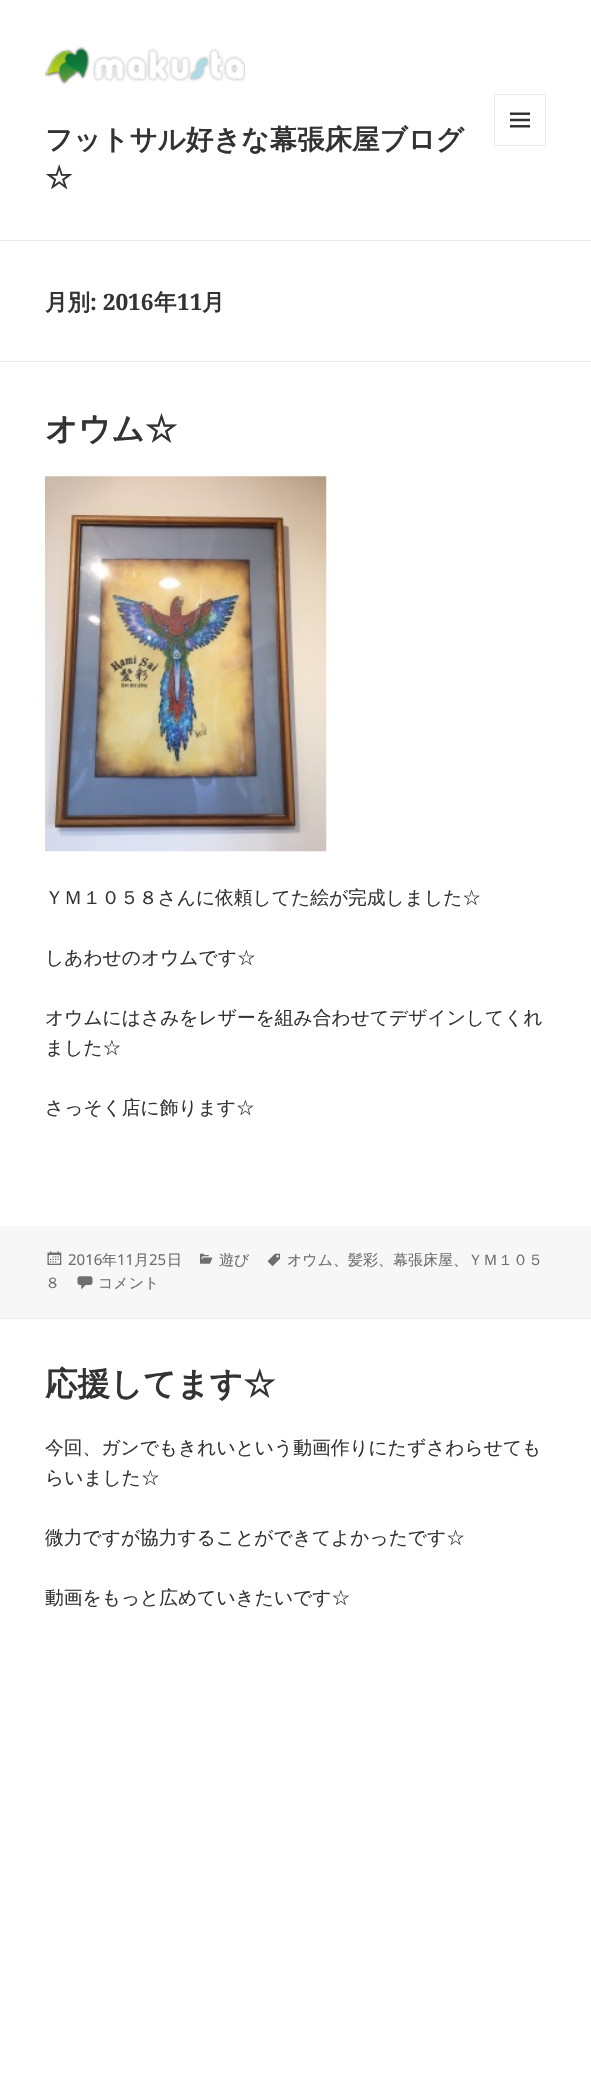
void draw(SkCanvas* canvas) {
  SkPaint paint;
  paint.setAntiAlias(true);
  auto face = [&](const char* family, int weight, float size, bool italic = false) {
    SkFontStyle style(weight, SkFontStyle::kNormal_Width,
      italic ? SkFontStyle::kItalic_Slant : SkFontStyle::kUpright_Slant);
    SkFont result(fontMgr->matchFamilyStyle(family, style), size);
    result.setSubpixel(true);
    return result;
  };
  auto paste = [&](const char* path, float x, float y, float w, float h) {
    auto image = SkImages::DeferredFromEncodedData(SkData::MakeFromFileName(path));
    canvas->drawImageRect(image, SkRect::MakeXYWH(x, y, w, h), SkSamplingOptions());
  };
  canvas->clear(0xffffffff);
  paint.setColor(0xffebebeb);
  canvas->drawRect(SkRect::MakeXYWH(0, 240, 591, 1), paint);
  paste("img/1.png", 45, 46, 200, 39);
  paint.setStroke(true);
  paint.setStrokeWidth(1);
  canvas->drawRect(SkRect::MakeXYWH(494.5f, 94.5f, 51, 51), paint);
  paste("img/2.png", 510, 112, 20, 16);
  paint.setStroke(false);
  canvas->drawRect(SkRect::MakeXYWH(0, 361, 591, 1), paint);
  paste("img/3.png", 45, 476, 282, 376);
  paint.setColor(0xfff7f7f7);
  canvas->drawRect(SkRect::MakeXYWH(0, 1226, 591, 92), paint);
  paste("img/4.png", 267, 1253, 13, 14);
  paste("img/5.png", 47, 1251, 15, 14);
  paste("img/6.png", 200, 1253, 13, 11);
  paste("img/7.png", 77, 1276, 16, 14);
  paint.setColor(0xffebebeb);
  canvas->drawRect(SkRect::MakeXYWH(0, 1318, 591, 1), paint);
  auto f0 = face("WenQuanYi Zen Hei", 700, 27.5f);
  paint.setColor(0xff333333);
  canvas->drawString("フットサル好きな幕張床屋ブログ", 45, 149, f0, paint);
  canvas->drawString("☆", 45, 187, f0, paint);
  auto f1 = face("WenQuanYi Zen Hei", 700, 22.5f);
  canvas->drawString("月別", 45, 310, f1, paint);
  auto f2 = face("Noto Serif", 700, 22.5f);
  canvas->drawString(": 2016", 90, 310, f2, paint);
  canvas->drawString("年", 154, 310, f1, paint);
  canvas->drawString("11", 177, 310, f2, paint);
  canvas->drawString("月", 202, 310, f1, paint);
  auto f3 = face("WenQuanYi Zen Hei", 700, 32.5f);
  canvas->drawString("オウム☆", 45, 440, f3, paint);
  auto f4 = face("WenQuanYi Zen Hei", 500, 18.75f);
  {
    const struct { const char* s; float x, y; } items[] = {
      {"ＹＭ１０５８さんに依頼してた絵が完成しました☆", 45, 904},
      {"しあわせのオウムです☆", 45, 964},
      {"オウムにはさみをレザーを組み合わせてデザインしてくれ", 45, 1024},
      {"ました☆", 45, 1054},
      {"さっそく店に飾ります☆", 45, 1114},
    };
    for (auto [s, x, y] : items) {
      canvas->drawString(s, x, y, f4, paint);
    }
  }
  auto f5 = face("WenQuanYi Zen Hei", 500, 15);
  paint.setColor(0xff6e6e6e);
  canvas->drawString("オウム、髪彩、幕張床屋、ＹＭ１０５", 287, 1265, f5, paint);
  canvas->drawString("８", 45, 1288, f5, paint);
  auto f6 = face("Noto Sans", 400, 15);
  canvas->drawString("2016", 68, 1265, f6, paint);
  canvas->drawString("年", 102, 1265, f5, paint);
  canvas->drawString("11", 117, 1265, f6, paint);
  canvas->drawString("月", 134, 1265, f5, paint);
  canvas->drawString("25", 149, 1265, f6, paint);
  {
    const struct { const char* s; float x, y; } items[] = {
      {"日", 167, 1265},
      {"遊び", 219, 1265},
      {"コメント", 98, 1288},
    };
    for (auto [s, x, y] : items) {
      canvas->drawString(s, x, y, f5, paint);
    }
  }
  paint.setColor(0xff333333);
  canvas->drawString("応援してます☆", 45, 1395, f3, paint);
  {
    const struct { const char* s; float x, y; } items[] = {
      {"今回、ガンでもきれいという動画作りにたずさわらせても", 45, 1454},
      {"らいました☆", 45, 1484},
      {"微力ですが協力することができてよかったです☆", 45, 1544},
      {"動画をもっと広めていきたいです☆", 45, 1604},
    };
    for (auto [s, x, y] : items) {
      canvas->drawString(s, x, y, f4, paint);
    }
  }
}
